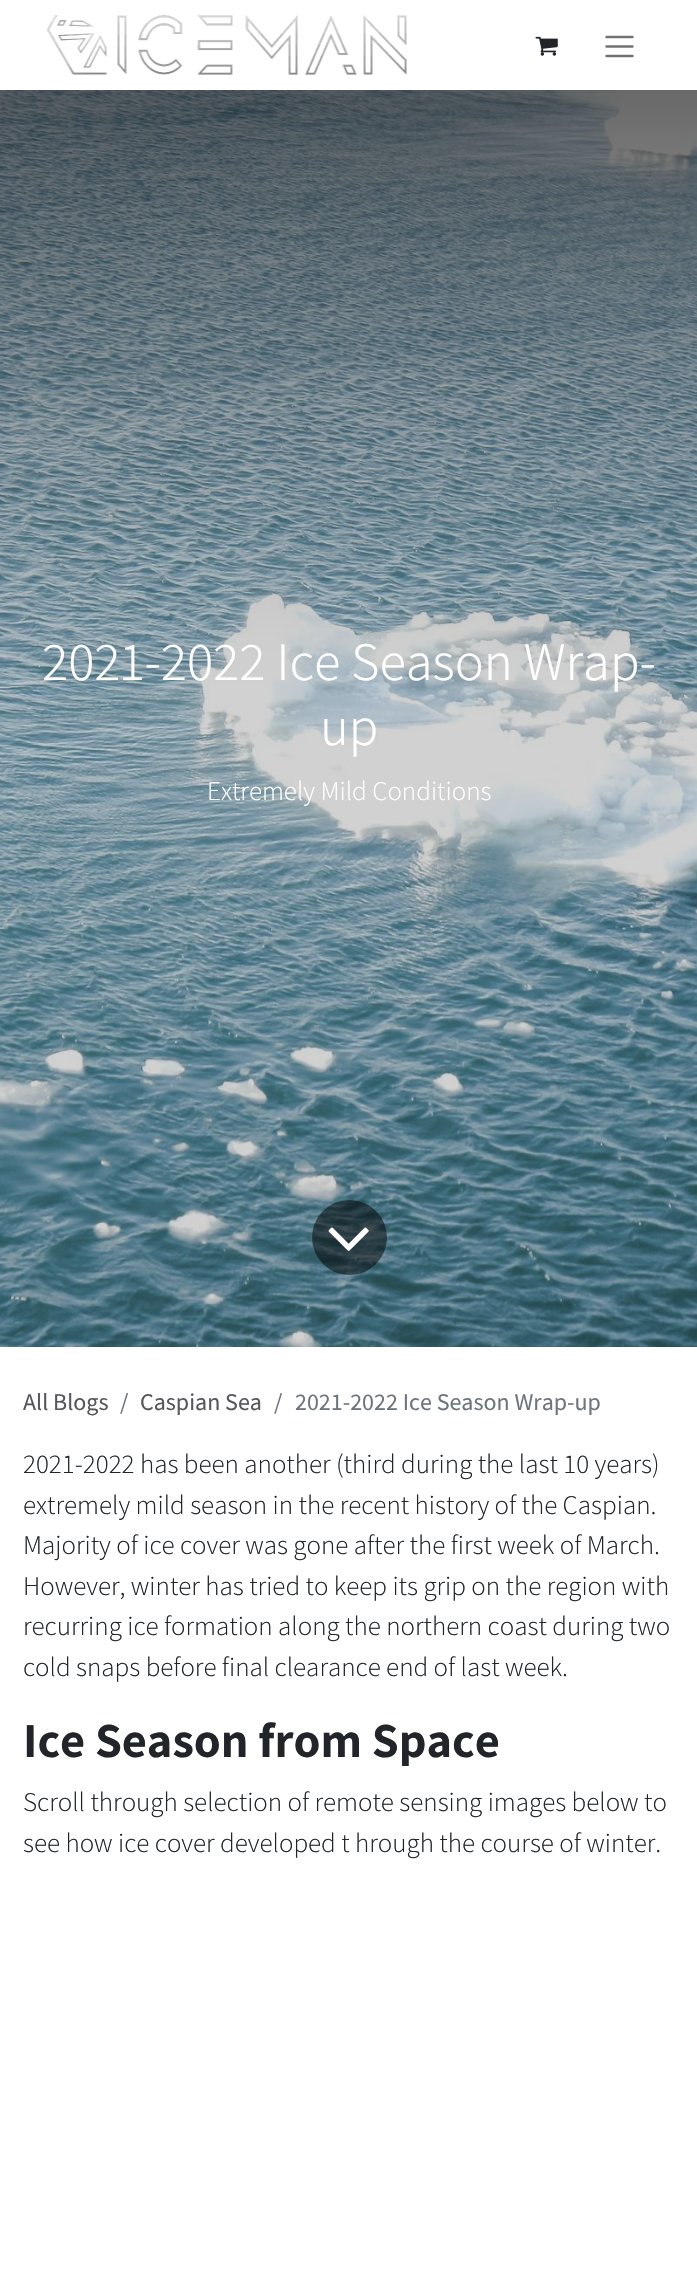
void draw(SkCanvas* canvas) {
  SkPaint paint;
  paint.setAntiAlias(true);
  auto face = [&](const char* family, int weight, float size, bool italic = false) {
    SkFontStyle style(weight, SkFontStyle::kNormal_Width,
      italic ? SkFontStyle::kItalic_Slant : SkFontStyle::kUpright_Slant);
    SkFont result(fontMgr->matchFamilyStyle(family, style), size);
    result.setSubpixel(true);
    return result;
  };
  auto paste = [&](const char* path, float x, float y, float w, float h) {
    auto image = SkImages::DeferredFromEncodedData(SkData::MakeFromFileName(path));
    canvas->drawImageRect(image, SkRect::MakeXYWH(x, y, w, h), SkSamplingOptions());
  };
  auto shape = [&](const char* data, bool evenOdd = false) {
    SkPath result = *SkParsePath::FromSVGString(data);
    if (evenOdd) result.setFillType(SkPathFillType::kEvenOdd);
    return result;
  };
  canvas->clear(0xffffffff);
  paste("img/1.png", 46, 15, 361, 60);
  paste("img/2.png", 535, 36, 23, 20);
  paint.setStroke(true);
  paint.setStrokeWidth(2.4f);
  paint.setStrokeCap(SkPaint::kRound_Cap);
  paint.setColor(0xff737373);
  canvas->drawPath(shape("M606.5 37H632.5M606.5 46.5H632.5M606.5 56H632.5"), paint);
  paste("img/3.png", 0, 90, 697, 1257);
  paint.setStroke(false);
  paint.setColor(0x80000000);
  canvas->drawCircle(349.5f, 1237.5f, 37.5f, paint);
  paste("img/4.png", 328, 1227, 41, 24);
  auto f0 = face("Assistant", 300, 54.25f);
  paint.setColor(0xffffffff);
  canvas->drawString("2021-2022 Ice Season Wrap-", 42, 680, f0, paint);
  canvas->drawString("up", 320, 745, f0, paint);
  auto f1 = face("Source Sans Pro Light", 300, 27);
  canvas->drawString("Extremely Mild Conditions", 207, 800, f1, paint);
  auto f2 = face("Source Sans Pro", 400, 24);
  paint.setColor(0xff56575a);
  canvas->drawString("All Blogs", 23, 1410, f2, paint);
  paint.setColor(0xff6c757d);
  canvas->drawString("/", 120, 1410, f2, paint);
  paint.setColor(0xff56575a);
  canvas->drawString("Caspian Sea", 140, 1410, f2, paint);
  paint.setColor(0xff6c757d);
  canvas->drawString("/", 274, 1410, f2, paint);
  canvas->drawString("2021-2022 Ice Season Wrap-up", 295, 1410, f2, paint);
  paint.setColor(0xff212529);
  {
    const struct { const char* s; float x, y; } items[] = {
      {"2021-2022 has been another (third during the last 10 years)", 23, 1473},
      {"extremely mild season in the recent history of the Caspian.", 23, 1514},
      {"Majority of ice cover was gone after the first week of March.", 23, 1554},
      {"However, winter has tried to keep its grip on the region with", 23, 1595},
      {"recurring ice formation along the northern coast during two", 23, 1635},
      {"cold snaps before final clearance end of last week.", 23, 1676},
    };
    for (auto [s, x, y] : items) {
      canvas->drawString(s, x, y, f1, paint);
    }
  }
  auto f3 = face("Assistant", 700, 48.75f);
  canvas->drawString("Ice Season from Space", 23, 1757, f3, paint);
  canvas->drawString("Scroll through selection of remote sensing images below to", 23, 1811, f1, paint);
  canvas->drawString("see how ice cover developed t hrough the course of winter.", 23, 1852, f1, paint);
}
